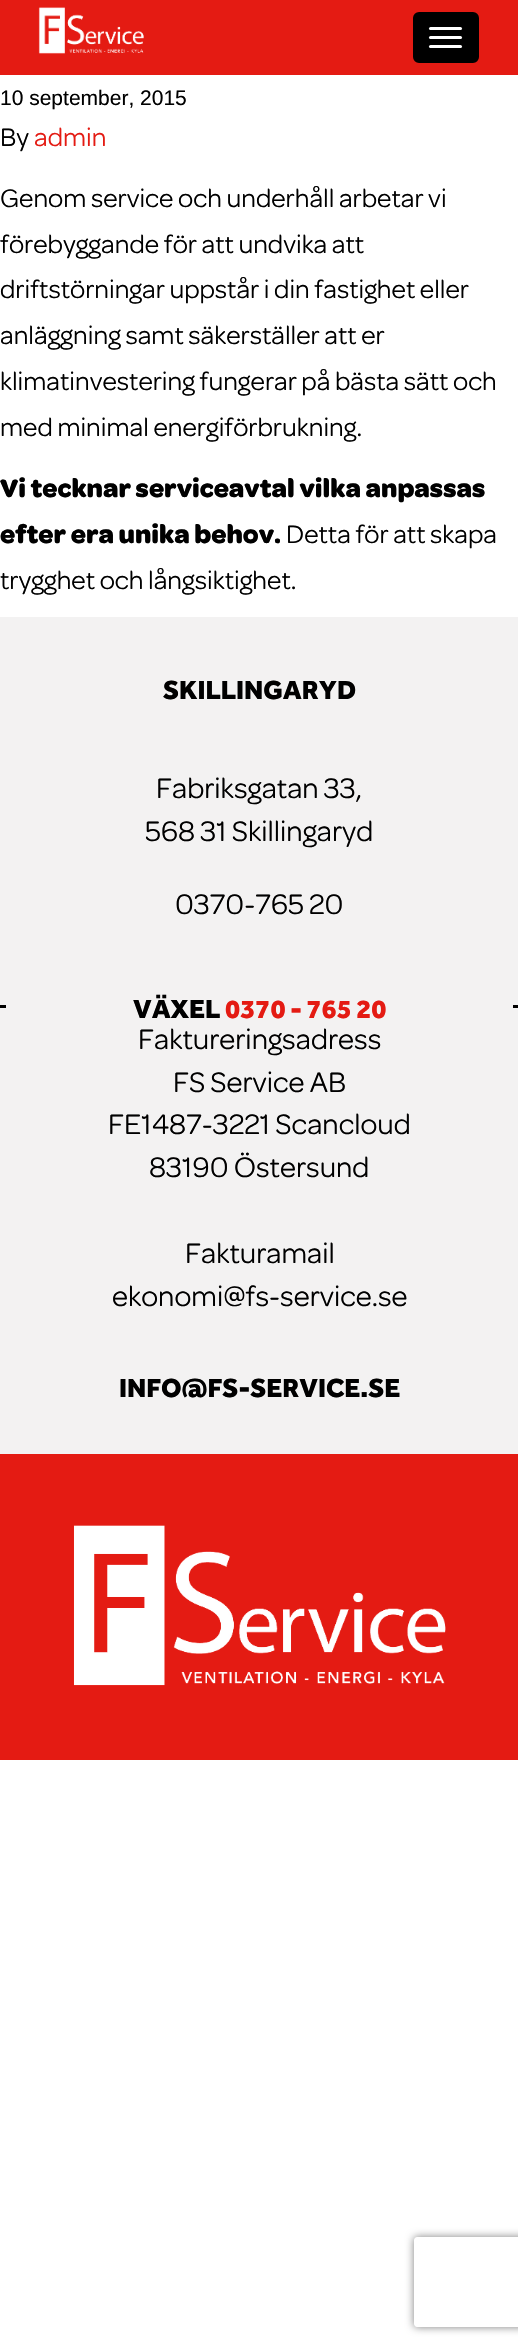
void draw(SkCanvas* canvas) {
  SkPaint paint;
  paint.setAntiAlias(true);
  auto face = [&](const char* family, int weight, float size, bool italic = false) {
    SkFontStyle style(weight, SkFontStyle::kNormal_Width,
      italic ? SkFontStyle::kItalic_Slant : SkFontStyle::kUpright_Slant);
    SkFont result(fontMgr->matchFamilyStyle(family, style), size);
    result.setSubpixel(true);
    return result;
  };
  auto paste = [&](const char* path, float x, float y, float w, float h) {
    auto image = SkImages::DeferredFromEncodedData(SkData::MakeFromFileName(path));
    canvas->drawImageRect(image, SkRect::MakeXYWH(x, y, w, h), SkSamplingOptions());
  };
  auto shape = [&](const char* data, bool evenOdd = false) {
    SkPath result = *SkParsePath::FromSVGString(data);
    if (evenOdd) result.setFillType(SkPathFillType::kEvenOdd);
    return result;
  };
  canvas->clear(0xffffffff);
  paint.setColor(0xffe41b13);
  canvas->drawRect(SkRect::MakeXYWH(0, 0, 518, 75), paint);
  paste("img/1.png", 38, 7, 106, 47);
  paint.setColor(0xff000000);
  canvas->drawRoundRect(SkRect::MakeXYWH(414, 13, 64, 49), 5, 5, paint);
  paint.setStroke(true);
  paint.setStrokeWidth(2);
  canvas->drawRoundRect(SkRect::MakeXYWH(414, 13, 64, 49), 5, 5, paint);
  paint.setStroke(false);
  paint.setColor(0xffffffff);
  canvas->drawRoundRect(SkRect::MakeXYWH(429, 27, 33, 3), 1.5f, 1.5f, paint);
  canvas->drawRoundRect(SkRect::MakeXYWH(429, 36, 33, 3), 1.5f, 1.5f, paint);
  canvas->drawRoundRect(SkRect::MakeXYWH(429, 45, 33, 3), 1.5f, 1.5f, paint);
  {
    const struct { float x, y, w, h; SkColor color; } items[] = {
      {0, 617, 518, 837, 0xfff3f2f2},
      {0, 1005, 6, 3, 0xff000000},
      {513, 1005, 5, 3, 0xff000000},
      {0, 1454, 518, 306, 0xffe41b13},
    };
    for (auto [x, y, w, h, color] : items) {
      paint.setColor(color);
      canvas->drawRect(SkRect::MakeXYWH(x, y, w, h), paint);
    }
  }
  paste("img/2.png", 73, 1525, 373, 161);
  canvas->save();
  canvas->clipPath(shape("M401 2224H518V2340H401ZM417 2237H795C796.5 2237 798 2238.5 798 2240V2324C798 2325.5 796.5 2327 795 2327H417C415.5 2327 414 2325.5 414 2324V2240C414 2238.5 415.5 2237 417 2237Z", true), true);
  paint.setColor(0xff808080);
  paint.setMaskFilter(SkMaskFilter::MakeBlur(kNormal_SkBlurStyle, 4));
  canvas->drawRoundRect(SkRect::MakeXYWH(414, 2237, 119, 90), 3, 3, paint);
  paint.setMaskFilter(nullptr);
  canvas->restore();
  auto f0 = face("Liberation Sans", 400, 21);
  paint.setColor(0xff000000);
  canvas->drawString("10 september, 2015", 0, 105, f0, paint);
  auto f1 = face("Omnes", 400, 27);
  canvas->drawString("By", 0, 146, f1, paint);
  paint.setColor(0xffe41b13);
  canvas->drawString("admin", 34, 146, f1, paint);
  paint.setColor(0xff000000);
  {
    const struct { const char* s; float x, y; } items[] = {
      {"Genom service och underhåll arbetar vi", 0, 207},
      {"förebyggande för att undvika att", 0, 253},
      {"driftstörningar uppstår i din fastighet eller", 0, 298},
      {"anläggning samt säkerställer att er", 0, 344},
      {"klimatinvestering fungerar på bästa sätt och", 0, 390},
      {"med minimal energiförbrukning.", 0, 436},
    };
    for (auto [s, x, y] : items) {
      canvas->drawString(s, x, y, f1, paint);
    }
  }
  auto f2 = face("Omnes", 700, 27);
  canvas->drawString("Vi tecknar serviceavtal vilka anpassas", 0, 497, f2, paint);
  canvas->drawString("efter era unika behov.", 0, 543, f2, paint);
  canvas->drawString("Detta för att skapa", 286, 543, f1, paint);
  canvas->drawString("trygghet och långsiktighet.", 0, 589, f1, paint);
  auto f3 = face("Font", 900, 27);
  canvas->drawString("SKILLINGARYD", 163, 699, f3, paint);
  auto f4 = face("Omnes", 400, 30);
  {
    const struct { const char* s; float x, y; } items[] = {
      {"Fabriksgatan 33,", 156, 798},
      {"568 31 Skillingaryd", 145, 841},
      {"0370-765 20", 175, 914},
    };
    for (auto [s, x, y] : items) {
      canvas->drawString(s, x, y, f4, paint);
    }
  }
  canvas->drawString("VÄXEL", 133, 1018, f3, paint);
  paint.setColor(0xffe41b13);
  canvas->drawString("0370 - 765 20", 225, 1018, f3, paint);
  paint.setColor(0xff000000);
  {
    const struct { const char* s; float x, y; } items[] = {
      {"Faktureringsadress", 138, 1049},
      {"FS Service AB", 173, 1092},
      {"FE1487-3221 Scancloud", 108, 1134},
      {"83190 Östersund", 149, 1177},
      {"Fakturamail", 185, 1263},
      {"ekonomi@fs-service.se", 112, 1306},
    };
    for (auto [s, x, y] : items) {
      canvas->drawString(s, x, y, f4, paint);
    }
  }
  canvas->drawString("INFO@FS-SERVICE.SE", 119, 1397, f3, paint);
}
